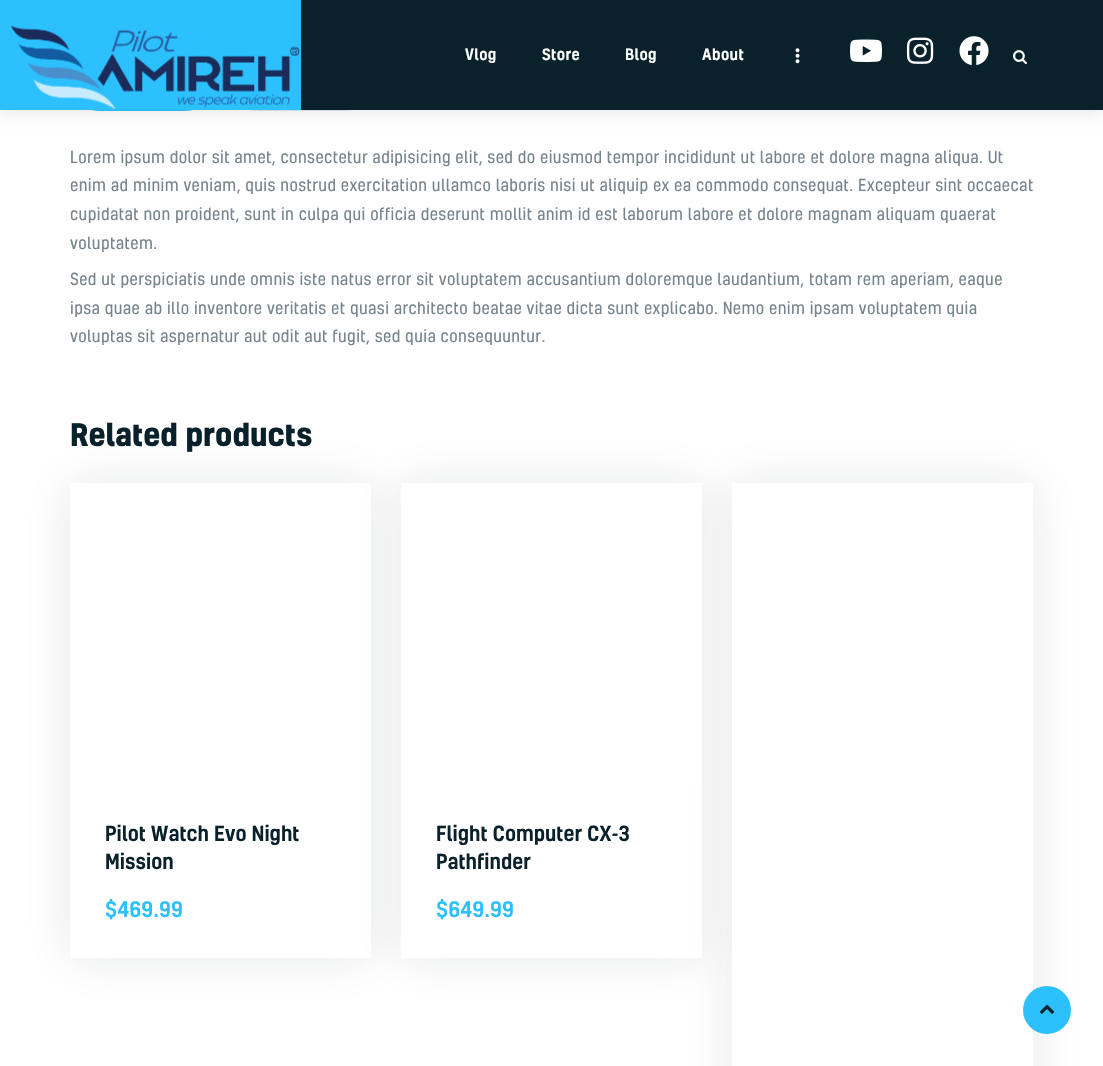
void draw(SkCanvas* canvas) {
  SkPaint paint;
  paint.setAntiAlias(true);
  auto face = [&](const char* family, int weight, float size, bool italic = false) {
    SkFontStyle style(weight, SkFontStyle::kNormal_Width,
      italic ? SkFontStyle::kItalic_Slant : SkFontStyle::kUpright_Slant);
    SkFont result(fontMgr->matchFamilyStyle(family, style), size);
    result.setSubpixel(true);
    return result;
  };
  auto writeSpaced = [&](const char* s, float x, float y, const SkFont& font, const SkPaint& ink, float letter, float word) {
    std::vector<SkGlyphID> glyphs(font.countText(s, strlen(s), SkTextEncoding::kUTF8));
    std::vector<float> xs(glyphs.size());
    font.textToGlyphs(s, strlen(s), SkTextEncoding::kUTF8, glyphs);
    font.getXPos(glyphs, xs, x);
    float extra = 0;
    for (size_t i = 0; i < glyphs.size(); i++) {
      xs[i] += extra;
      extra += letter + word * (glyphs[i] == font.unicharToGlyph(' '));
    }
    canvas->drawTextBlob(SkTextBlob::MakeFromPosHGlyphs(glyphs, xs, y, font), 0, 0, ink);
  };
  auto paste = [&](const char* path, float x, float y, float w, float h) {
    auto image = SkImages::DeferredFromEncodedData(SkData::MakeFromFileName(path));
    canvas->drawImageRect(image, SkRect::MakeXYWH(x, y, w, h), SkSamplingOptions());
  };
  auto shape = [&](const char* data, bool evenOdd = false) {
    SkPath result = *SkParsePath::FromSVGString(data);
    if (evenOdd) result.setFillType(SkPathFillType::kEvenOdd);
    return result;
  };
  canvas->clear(0xffffffff);
  paint.setStroke(true);
  paint.setStrokeWidth(1);
  paint.setColor(0xff2cc0ff);
  canvas->drawRoundRect(SkRect::MakeXYWH(70.5f, 54.5f, 143, 56), 28, 28, paint);
  paint.setColor(0xffdce9ef);
  canvas->drawRoundRect(SkRect::MakeXYWH(228.5f, 54.5f, 144, 56), 28, 28, paint);
  paint.setStroke(false);
  paint.setColor(0x1a000000);
  paint.setMaskFilter(SkMaskFilter::MakeBlur(kNormal_SkBlurStyle, 8));
  canvas->drawRect(SkRect::MakeXYWH(0, 2, 1103, 110), paint);
  paint.setMaskFilter(nullptr);
  paint.setColor(0xff09212b);
  canvas->drawRect(SkRect::MakeXYWH(301, 0, 802, 110), paint);
  paint.setColor(0xff2cc0ff);
  canvas->drawRect(SkRect::MakeXYWH(0, 0, 301, 110), paint);
  paste("img/1.png", 11, 25, 289, 85);
  paste("img/2.png", 795, 48, 5, 16);
  paste("img/3.png", 850, 39, 32, 23);
  paste("img/4.png", 906, 37, 28, 27);
  paste("img/5.png", 959, 36, 30, 29);
  paste("img/6.png", 1013, 50, 14, 15);
  canvas->save();
  canvas->clipPath(shape("M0 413H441V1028H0ZM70 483H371V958H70Z", true), true);
  paint.setColor(0x1a09212b);
  paint.setMaskFilter(SkMaskFilter::MakeBlur(kNormal_SkBlurStyle, 23));
  canvas->drawRect(SkRect::MakeXYWH(70, 483, 301, 475), paint);
  paint.setMaskFilter(nullptr);
  canvas->restore();
  paint.setMaskFilter(SkMaskFilter::MakeBlur(kNormal_SkBlurStyle, 23));
  canvas->drawRect(SkRect::MakeXYWH(401, 483, 301, 475), paint);
  paint.setMaskFilter(nullptr);
  paint.setColor(0xffffffff);
  canvas->drawRect(SkRect::MakeXYWH(401, 784, 301, 174), paint);
  paint.setColor(0x1a09212b);
  paint.setMaskFilter(SkMaskFilter::MakeBlur(kNormal_SkBlurStyle, 23));
  canvas->drawRect(SkRect::MakeXYWH(732, 483, 301, 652), paint);
  paint.setMaskFilter(nullptr);
  paint.setColor(0xffffffff);
  canvas->drawRect(SkRect::MakeXYWH(401, 483, 301, 301), paint);
  canvas->drawRect(SkRect::MakeXYWH(732, 483, 301, 583), paint);
  paint.setColor(0xff2cc0ff);
  canvas->drawCircle(1047, 1010, 24, paint);
  paste("img/7.png", 1039, 1004, 16, 10);
  auto f0 = face("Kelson", 500, 15);
  paint.setColor(0xffffffff);
  {
    const struct { const char* s; float x, y; } items[] = {
      {"Vlog", 465, 60},
      {"Store", 542, 60},
      {"Blog", 625, 60},
      {"About", 702, 60},
    };
    for (auto [s, x, y] : items) {
      writeSpaced(s, x, y, f0, paint, 0.4f, 0);
    }
  }
  auto f1 = face("Kelson", 400, 16);
  paint.setColor(0xff76848c);
  {
    const struct { const char* s; float x, y; } items[] = {
      {"Lorem ipsum dolor sit amet, consectetur adipisicing elit, sed do eiusmod tempor incididunt ut labore et dolore magna aliqua. Ut", 70, 163},
      {"enim ad minim veniam, quis nostrud exercitation ullamco laboris nisi ut aliquip ex ea commodo consequat. Excepteur sint occaecat", 70, 191},
      {"cupidatat non proident, sunt in culpa qui officia deserunt mollit anim id est laborum labore et dolore magnam aliquam quaerat", 70, 220},
      {"voluptatem.", 70, 249},
      {"Sed ut perspiciatis unde omnis iste natus error sit voluptatem accusantium doloremque laudantium, totam rem aperiam, eaque", 70, 285},
      {"ipsa quae ab illo inventore veritatis et quasi architecto beatae vitae dicta sunt explicabo. Nemo enim ipsam voluptatem quia", 70, 314},
      {"voluptas sit aspernatur aut odit aut fugit, sed quia consequuntur.", 70, 342},
    };
    for (auto [s, x, y] : items) {
      writeSpaced(s, x, y, f1, paint, 0.4f, 0);
    }
  }
  auto f2 = face("Kelson", 700, 30);
  paint.setColor(0xff09212b);
  canvas->drawString("Related products", 70, 446, f2, paint);
  auto f3 = face("Kelson", 500, 20);
  canvas->drawString("Pilot Watch Evo Night", 105, 841, f3, paint);
  canvas->drawString("Mission", 105, 869, f3, paint);
  auto f4 = face("Kelson", 500, 20.5f);
  paint.setColor(0xff2cc0ff);
  writeSpaced("$469.99", 105, 917, f4, paint, 0.4f, 0);
  paint.setColor(0xff09212b);
  canvas->drawString("Flight Computer CX-3", 436, 841, f3, paint);
  canvas->drawString("Pathfinder", 436, 869, f3, paint);
  paint.setColor(0xff2cc0ff);
  writeSpaced("$649.99", 436, 917, f4, paint, 0.4f, 0);
}
